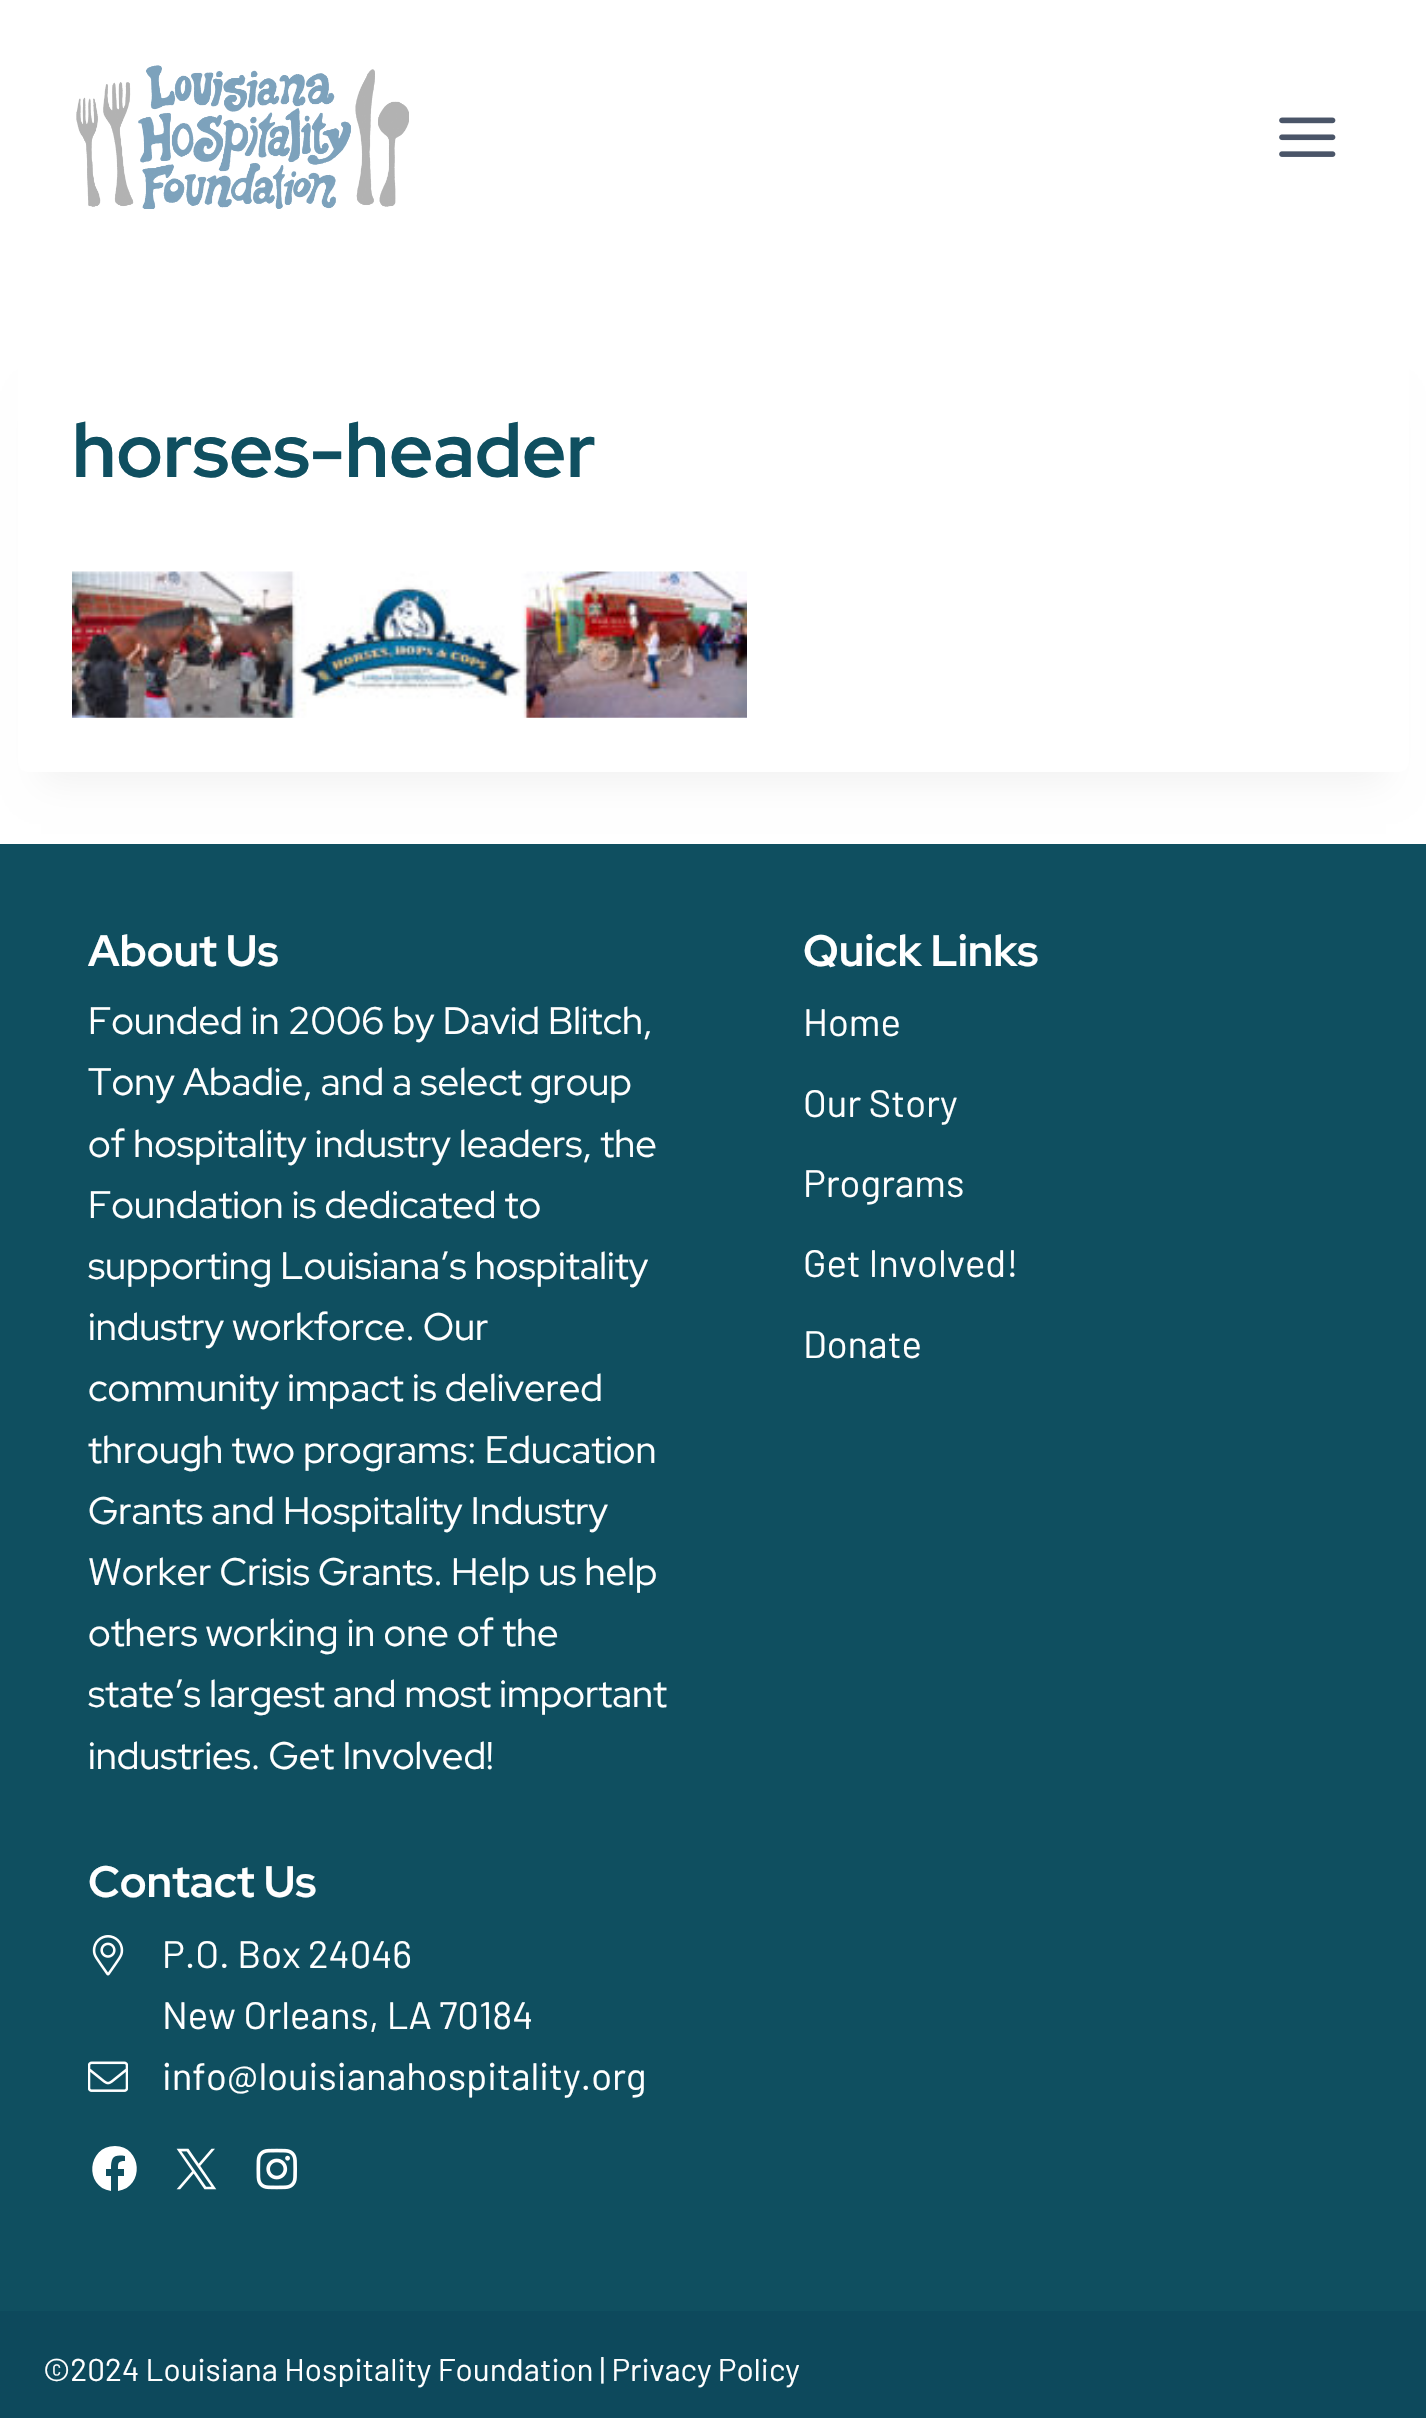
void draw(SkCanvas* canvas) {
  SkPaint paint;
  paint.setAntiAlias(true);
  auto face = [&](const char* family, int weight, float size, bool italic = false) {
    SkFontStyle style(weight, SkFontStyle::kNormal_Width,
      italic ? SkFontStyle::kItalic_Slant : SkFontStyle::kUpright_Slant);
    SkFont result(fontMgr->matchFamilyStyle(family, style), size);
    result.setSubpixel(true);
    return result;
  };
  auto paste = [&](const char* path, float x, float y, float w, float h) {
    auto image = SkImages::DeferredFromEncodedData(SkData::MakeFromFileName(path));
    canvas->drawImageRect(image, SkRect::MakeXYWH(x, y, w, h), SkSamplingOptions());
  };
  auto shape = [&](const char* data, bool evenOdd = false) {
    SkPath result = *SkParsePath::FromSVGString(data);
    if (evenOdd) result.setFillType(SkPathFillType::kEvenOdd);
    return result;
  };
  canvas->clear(0xffffffff);
  paste("img/1.png", 76, 65, 333, 144);
  paste("img/2.png", 1279, 117, 57, 40);
  paint.setColor(0x0d000000);
  paint.setMaskFilter(SkMaskFilter::MakeBlur(kNormal_SkBlurStyle, 17));
  canvas->drawRect(SkRect::MakeXYWH(41, 403, 1345, 380), paint);
  paint.setMaskFilter(nullptr);
  paint.setColor(0xffffffff);
  canvas->drawRoundRect(SkRect::MakeXYWH(18, 347, 1391, 425), 9, 9, paint);
  paste("img/3.png", 72, 571, 675, 147);
  paint.setColor(0xff0f4f60);
  canvas->drawRect(SkRect::MakeXYWH(0, 844, 1426, 1467), paint);
  paste("img/4.png", 92, 1935, 32, 41);
  paste("img/5.png", 88, 2061, 40, 31);
  paint.setColor(0xffffffff);
  canvas->drawPath(shape("M115 2146C87 2146 84 2187 111 2191V2176H106V2169H111C111 2158 113 2154 125 2156V2161C118 2161 118 2163 118 2169H124V2176H118V2191C145 2187 142 2146 115 2146Z"), paint);
  paste("img/6.png", 176, 2148, 41, 42);
  paste("img/7.png", 256, 2148, 41, 42);
  paint.setColor(0xff0d495c);
  canvas->drawRect(SkRect::MakeXYWH(0, 2311, 1426, 107), paint);
  auto f0 = face("Red Hat Display", 700, 76.5f);
  paint.setColor(0xff0f4f60);
  canvas->drawString("horses-header", 72, 477, f0, paint);
  auto f1 = face("Red Hat Display", 700, 44);
  paint.setColor(0xffffffff);
  canvas->drawString("About Us", 88, 966, f1, paint);
  auto f2 = face("Red Hat Display", 400, 38.25f);
  {
    const struct { const char* s; float x, y; } items[] = {
      {"Founded in 2006 by David Blitch,", 88, 1034},
      {"Tony Abadie, and a select group", 88, 1095},
      {"of hospitality industry leaders, the", 88, 1157},
      {"Foundation is dedicated to", 88, 1218},
      {"supporting Louisiana’s hospitality", 88, 1279},
      {"industry workforce. Our", 88, 1340},
      {"community impact is delivered", 88, 1401},
      {"through two programs: Education", 88, 1463},
      {"Grants and Hospitality Industry", 88, 1524},
      {"Worker Crisis Grants. Help us help", 88, 1585},
      {"others working in one of the", 88, 1646},
      {"state’s largest and most important", 88, 1707},
      {"industries. Get Involved!", 88, 1769},
    };
    for (auto [s, x, y] : items) {
      canvas->drawString(s, x, y, f2, paint);
    }
  }
  canvas->drawString("Quick Links", 803, 966, f1, paint);
  auto f3 = face("Barlow", 400, 38.25f);
  {
    const struct { const char* s; float x, y; } items[] = {
      {"Home", 803, 1036},
      {"Our Story", 803, 1117},
      {"Programs", 803, 1197},
      {"Get Involved!", 803, 1277},
      {"Donate", 803, 1358},
    };
    for (auto [s, x, y] : items) {
      canvas->drawString(s, x, y, f3, paint);
    }
  }
  canvas->drawString("Contact Us", 88, 1897, f1, paint);
  {
    const struct { const char* s; float x, y; } items[] = {
      {"P.O. Box 24046", 162, 1968},
      {"New Orleans, LA 70184", 162, 2029},
      {"info@louisianahospitality.org", 162, 2090},
    };
    for (auto [s, x, y] : items) {
      canvas->drawString(s, x, y, f3, paint);
    }
  }
  auto f4 = face("Barlow", 400, 31.5f);
  canvas->drawString("©2024 Louisiana Hospitality Foundation | Privacy Policy", 43, 2381, f4, paint);
}
